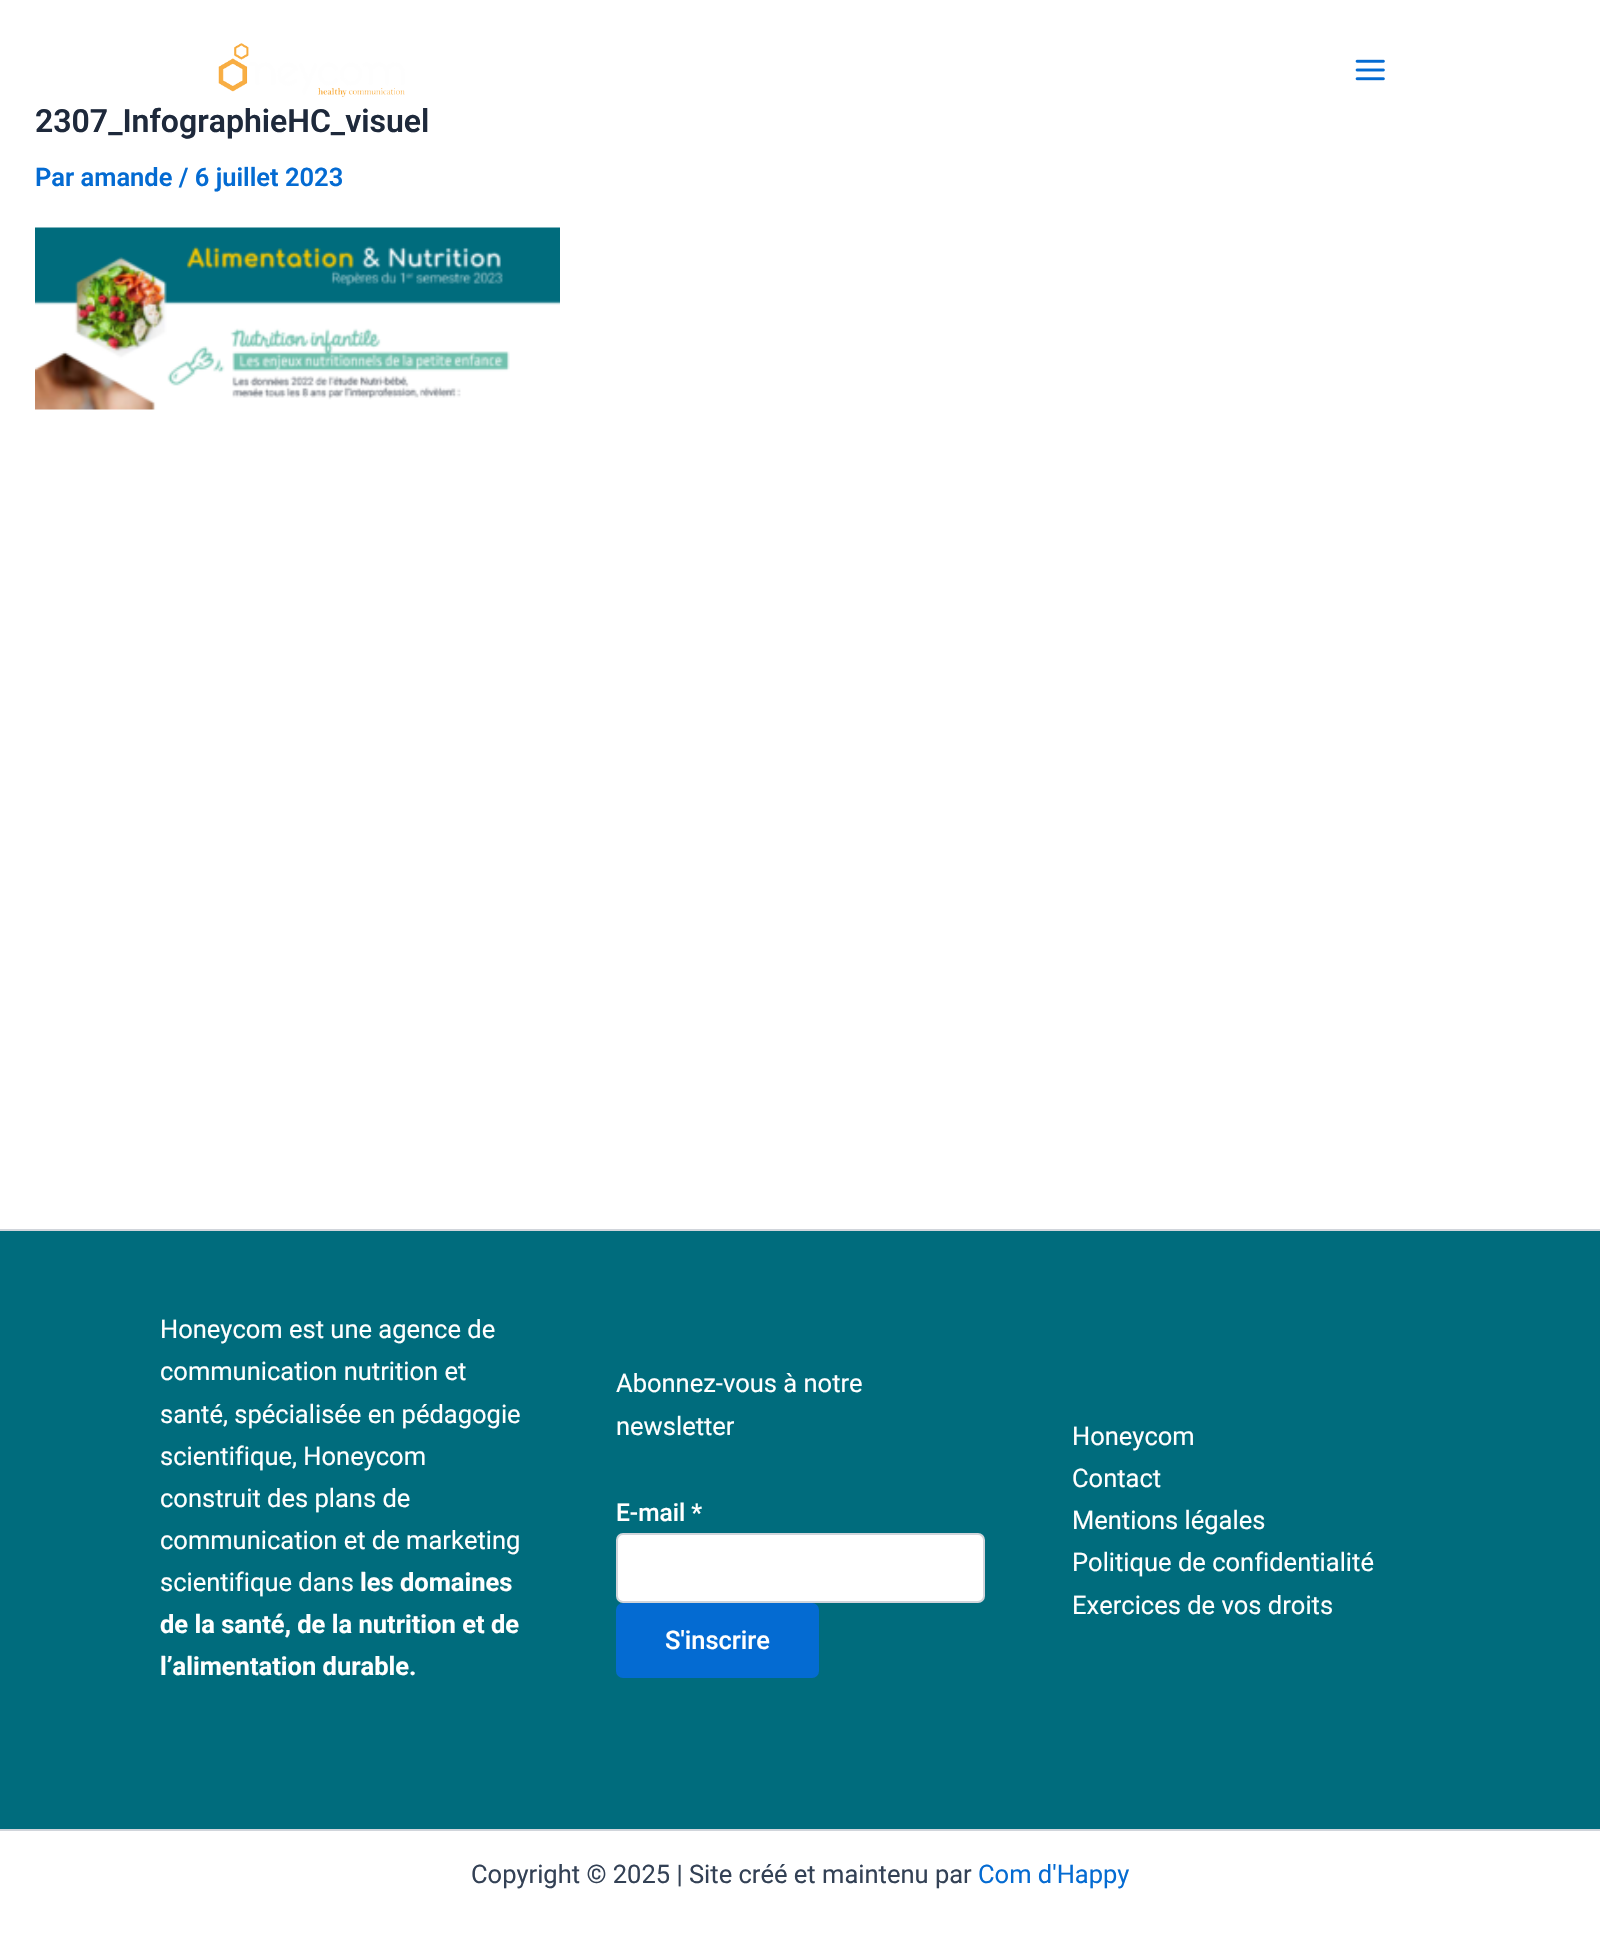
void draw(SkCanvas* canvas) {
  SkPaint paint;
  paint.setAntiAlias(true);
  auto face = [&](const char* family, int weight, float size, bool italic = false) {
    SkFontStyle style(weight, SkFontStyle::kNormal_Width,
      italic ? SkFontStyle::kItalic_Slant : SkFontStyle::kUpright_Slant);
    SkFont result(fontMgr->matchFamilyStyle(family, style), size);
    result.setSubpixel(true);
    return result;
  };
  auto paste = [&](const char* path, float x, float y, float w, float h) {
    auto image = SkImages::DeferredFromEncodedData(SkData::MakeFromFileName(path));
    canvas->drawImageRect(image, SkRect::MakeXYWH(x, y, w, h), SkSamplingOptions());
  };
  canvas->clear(0xffffffff);
  paste("img/1.png", 218, 43, 187, 54);
  paste("img/2.png", 1355, 59, 30, 22);
  paste("img/3.png", 35, 227, 525, 183);
  paint.setColor(0xff006c7d);
  canvas->drawRect(SkRect::MakeXYWH(0, 1231, 1600, 598), paint);
  paint.setColor(0xffd1d5db);
  canvas->drawRect(SkRect::MakeXYWH(0, 1229, 1600, 2), paint);
  paint.setColor(0xffffffff);
  canvas->drawRoundRect(SkRect::MakeXYWH(617, 1534, 367, 68), 6, 6, paint);
  paint.setStroke(true);
  paint.setStrokeWidth(2);
  paint.setColor(0xffd1d5db);
  canvas->drawRoundRect(SkRect::MakeXYWH(617, 1534, 367, 68), 6, 6, paint);
  paint.setStroke(false);
  paint.setColor(0xff046bd2);
  canvas->drawRoundRect(SkRect::MakeXYWH(616, 1603, 203, 75), 7, 7, paint);
  paint.setColor(0xffd1d5db);
  canvas->drawRect(SkRect::MakeXYWH(0, 1829, 1600, 2), paint);
  auto f0 = face("Roboto", 600, 32);
  paint.setColor(0xff1e293b);
  canvas->drawString("2307_InfographieHC_visuel", 35, 132, f0, paint);
  auto f1 = face("Roboto", 600, 25.5f);
  paint.setColor(0xff046bd2);
  canvas->drawString("Par amande / 6 juillet 2023", 35, 186, f1, paint);
  auto f2 = face("Roboto", 400, 25.5f);
  paint.setColor(0xffffffff);
  {
    const struct { const char* s; float x, y; } items[] = {
      {"Honeycom est une agence de", 160, 1338},
      {"communication nutrition et", 160, 1380},
      {"santé, spécialisée en pédagogie", 160, 1423},
      {"scientifique, Honeycom", 160, 1465},
      {"construit des plans de", 160, 1507},
      {"communication et de marketing", 160, 1549},
      {"scientifique dans", 160, 1591},
    };
    for (auto [s, x, y] : items) {
      canvas->drawString(s, x, y, f2, paint);
    }
  }
  auto f3 = face("Roboto", 700, 25.5f);
  {
    const struct { const char* s; float x, y; } items[] = {
      {"les domaines", 360, 1591},
      {"de la santé, de la nutrition et de", 160, 1633},
      {"l’alimentation durable.", 160, 1675},
    };
    for (auto [s, x, y] : items) {
      canvas->drawString(s, x, y, f3, paint);
    }
  }
  canvas->drawString("Abonnez-vous à notre", 616, 1392, f2, paint);
  canvas->drawString("newsletter", 616, 1435, f2, paint);
  auto f4 = face("Roboto", 500, 24.5f);
  canvas->drawString("E-mail *", 616, 1521, f4, paint);
  auto f5 = face("Roboto", 500, 25.5f);
  canvas->drawString("S'inscrire", 665, 1649, f5, paint);
  {
    const struct { const char* s; float x, y; } items[] = {
      {"Honeycom", 1072, 1445},
      {"Contact", 1072, 1487},
      {"Mentions légales", 1072, 1529},
      {"Politique de confidentialité", 1072, 1571},
      {"Exercices de vos droits", 1072, 1614},
    };
    for (auto [s, x, y] : items) {
      canvas->drawString(s, x, y, f2, paint);
    }
  }
  paint.setColor(0xff334155);
  canvas->drawString("Copyright © 2025 | Site créé et maintenu par", 471, 1883, f2, paint);
  paint.setColor(0xff046bd2);
  canvas->drawString("Com d'Happy", 978, 1883, f2, paint);
}
